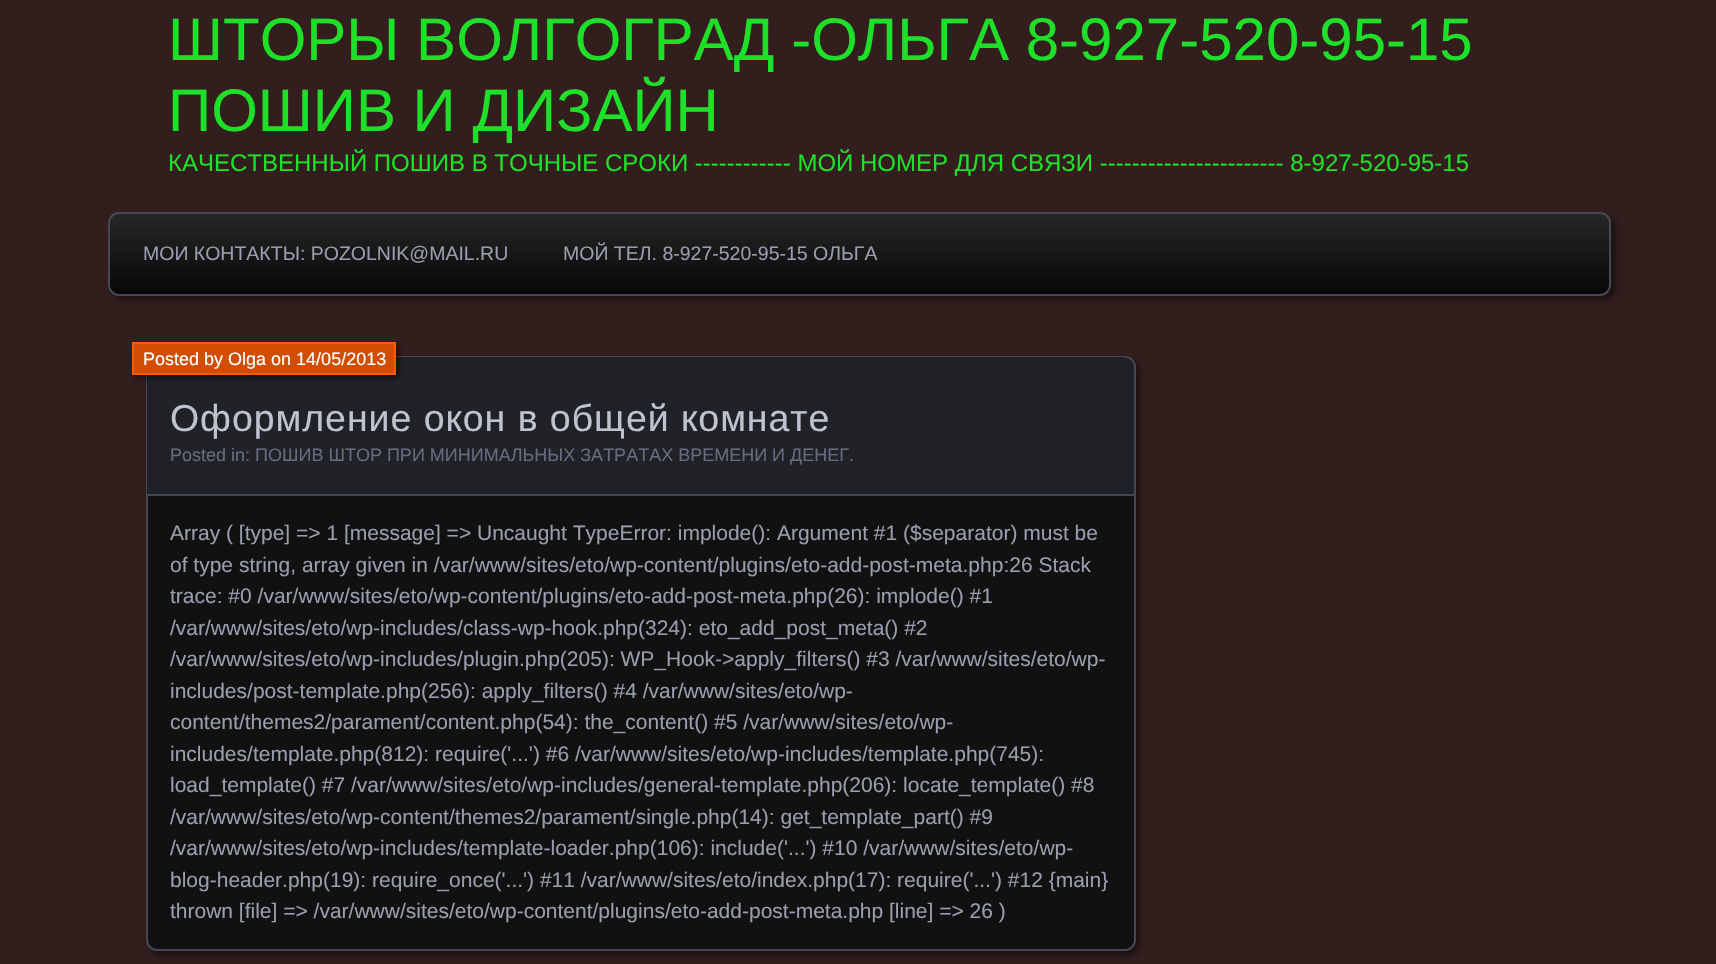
void draw(SkCanvas* canvas) {
  SkPaint paint;
  paint.setAntiAlias(true);
  auto face = [&](const char* family, int weight, float size, bool italic = false) {
    SkFontStyle style(weight, SkFontStyle::kNormal_Width,
      italic ? SkFontStyle::kItalic_Slant : SkFontStyle::kUpright_Slant);
    SkFont result(fontMgr->matchFamilyStyle(family, style), size);
    result.setSubpixel(true);
    return result;
  };
  auto writeSpaced = [&](const char* s, float x, float y, const SkFont& font, const SkPaint& ink, float letter, float word) {
    std::vector<SkGlyphID> glyphs(font.countText(s, strlen(s), SkTextEncoding::kUTF8));
    std::vector<float> xs(glyphs.size());
    font.textToGlyphs(s, strlen(s), SkTextEncoding::kUTF8, glyphs);
    font.getXPos(glyphs, xs, x);
    float extra = 0;
    for (size_t i = 0; i < glyphs.size(); i++) {
      xs[i] += extra;
      extra += letter + word * (glyphs[i] == font.unicharToGlyph(' '));
    }
    canvas->drawTextBlob(SkTextBlob::MakeFromPosHGlyphs(glyphs, xs, y, font), 0, 0, ink);
  };
  auto shape = [&](const char* data, bool evenOdd = false) {
    SkPath result = *SkParsePath::FromSVGString(data);
    if (evenOdd) result.setFillType(SkPathFillType::kEvenOdd);
    return result;
  };
  canvas->clear(0xff331e1e);
  paint.setColor(0x73000000);
  paint.setMaskFilter(SkMaskFilter::MakeBlur(kNormal_SkBlurStyle, 3));
  canvas->drawRoundRect(SkRect::MakeXYWH(113, 216, 1503, 84), 11, 11, paint);
  paint.setMaskFilter(nullptr);
  canvas->save();
  canvas->clipPath(shape("M119 212H1600C1606 212 1611 217 1611 223V285C1611 291 1606 296 1600 296H119C113 296 108 291 108 285V223C108 217 113 212 119 212Z"), true);
  {
    const SkColor colors[] = {0xff272727, 0xff070707};
    const float stops[] = {0.01f, 1};
    const SkPoint ends[] = {{860, 213}, {860, 294}};
    paint.setShader(SkGradientShader::MakeLinear(ends, colors, stops, 2, SkTileMode::kClamp));
    paint.setAlpha(255);
  }
  canvas->drawRect(SkRect::MakeXYWH(108, 213, 1503, 81), paint);
  canvas->restore();
  paint.setStroke(true);
  paint.setStrokeWidth(2);
  paint.setShader(nullptr);
  paint.setColor(0xff444855);
  canvas->drawRoundRect(SkRect::MakeXYWH(109, 213, 1501, 82), 10, 10, paint);
  paint.setStroke(false);
  paint.setColor(0x73000000);
  paint.setMaskFilter(SkMaskFilter::MakeBlur(kNormal_SkBlurStyle, 3));
  canvas->drawRoundRect(SkRect::MakeXYWH(150, 360, 990, 596), 11, 11, paint);
  paint.setMaskFilter(nullptr);
  paint.setColor(0xff111111);
  canvas->drawRoundRect(SkRect::MakeXYWH(147, 357, 988, 593), 10, 10, paint);
  paint.setStroke(true);
  paint.setColor(0xff444855);
  canvas->drawRoundRect(SkRect::MakeXYWH(147, 357, 988, 593), 10, 10, paint);
  paint.setStroke(false);
  paint.setColor(0xff202228);
  canvas->drawPath(shape("M158 357H1123C1129 357 1134 362 1134 368V495H147V368C147 362 152 357 158 357Z"), paint);
  paint.setColor(0xff444855);
  canvas->drawRect(SkRect::MakeXYWH(147, 494, 987, 2), paint);
  paint.setColor(0x73000000);
  paint.setMaskFilter(SkMaskFilter::MakeBlur(kNormal_SkBlurStyle, 2.5f));
  canvas->drawRect(SkRect::MakeXYWH(135, 345, 264, 33), paint);
  paint.setMaskFilter(nullptr);
  paint.setColor(0xffd24d04);
  canvas->drawRect(SkRect::MakeXYWH(133, 343, 262, 31), paint);
  paint.setStroke(true);
  paint.setColor(0xffff5a00);
  canvas->drawRect(SkRect::MakeXYWH(133, 343, 262, 31), paint);
  auto f0 = face("Liberation Sans", 400, 60);
  paint.setStroke(false);
  paint.setColor(0xff1fe029);
  canvas->drawString("ШТОРЫ ВОЛГОГРАД -ОЛЬГА 8-927-520-95-15", 168, 60, f0, paint);
  canvas->drawString("ПОШИВ И ДИЗАЙН", 168, 131, f0, paint);
  auto f1 = face("Liberation Sans", 400, 24);
  canvas->drawString("КАЧЕСТВЕННЫЙ ПОШИВ В ТОЧНЫЕ СРОКИ ------------ МОЙ НОМЕР ДЛЯ СВЯЗИ ----------------------- 8-927-520-95-15", 168, 171, f1, paint);
  auto f2 = face("Liberation Sans", 400, 19.5f);
  paint.setColor(0xff989eae);
  canvas->drawString("МОИ КОНТАКТЫ: POZOLNIK@MAIL.RU", 143, 260, f2, paint);
  canvas->drawString("МОЙ ТЕЛ. 8-927-520-95-15 ОЛЬГА", 563, 260, f2, paint);
  auto f3 = face("Liberation Sans", 400, 18);
  paint.setColor(0xffffffff);
  canvas->drawString("Posted by Olga on 14/05/2013", 143, 365, f3, paint);
  auto f4 = face("Liberation Sans", 400, 37.5f);
  paint.setColor(0xffbfc3cf);
  writeSpaced("Оформление окон в общей комнате", 170, 431, f4, paint, 0.95f, 0);
  paint.setColor(0xff666c7f);
  canvas->drawString("Posted in: ПОШИВ ШТОР ПРИ МИНИМАЛЬНЫХ ЗАТРАТАХ ВРЕМЕНИ И ДЕНЕГ.", 170, 461, f3, paint);
  auto f5 = face("Liberation Sans", 400, 21);
  paint.setColor(0xff989eae);
  {
    const struct { const char* s; float x, y; } items[] = {
      {"Array ( [type] => 1 [message] => Uncaught TypeError: implode(): Argument #1 ($separator) must be", 170, 540},
      {"of type string, array given in /var/www/sites/eto/wp-content/plugins/eto-add-post-meta.php:26 Stack", 170, 572},
      {"trace: #0 /var/www/sites/eto/wp-content/plugins/eto-add-post-meta.php(26): implode() #1", 170, 603},
      {"/var/www/sites/eto/wp-includes/class-wp-hook.php(324): eto_add_post_meta() #2", 170, 635},
      {"/var/www/sites/eto/wp-includes/plugin.php(205): WP_Hook->apply_filters() #3 /var/www/sites/eto/wp-", 170, 666},
      {"includes/post-template.php(256): apply_filters() #4 /var/www/sites/eto/wp-", 170, 698},
      {"content/themes2/parament/content.php(54): the_content() #5 /var/www/sites/eto/wp-", 170, 729},
      {"includes/template.php(812): require('...') #6 /var/www/sites/eto/wp-includes/template.php(745):", 170, 761},
      {"load_template() #7 /var/www/sites/eto/wp-includes/general-template.php(206): locate_template() #8", 170, 792},
      {"/var/www/sites/eto/wp-content/themes2/parament/single.php(14): get_template_part() #9", 170, 824},
      {"/var/www/sites/eto/wp-includes/template-loader.php(106): include('...') #10 /var/www/sites/eto/wp-", 170, 855},
      {"blog-header.php(19): require_once('...') #11 /var/www/sites/eto/index.php(17): require('...') #12 {main}", 170, 887},
      {"thrown [file] => /var/www/sites/eto/wp-content/plugins/eto-add-post-meta.php [line] => 26 )", 170, 918},
    };
    for (auto [s, x, y] : items) {
      canvas->drawString(s, x, y, f5, paint);
    }
  }
}
